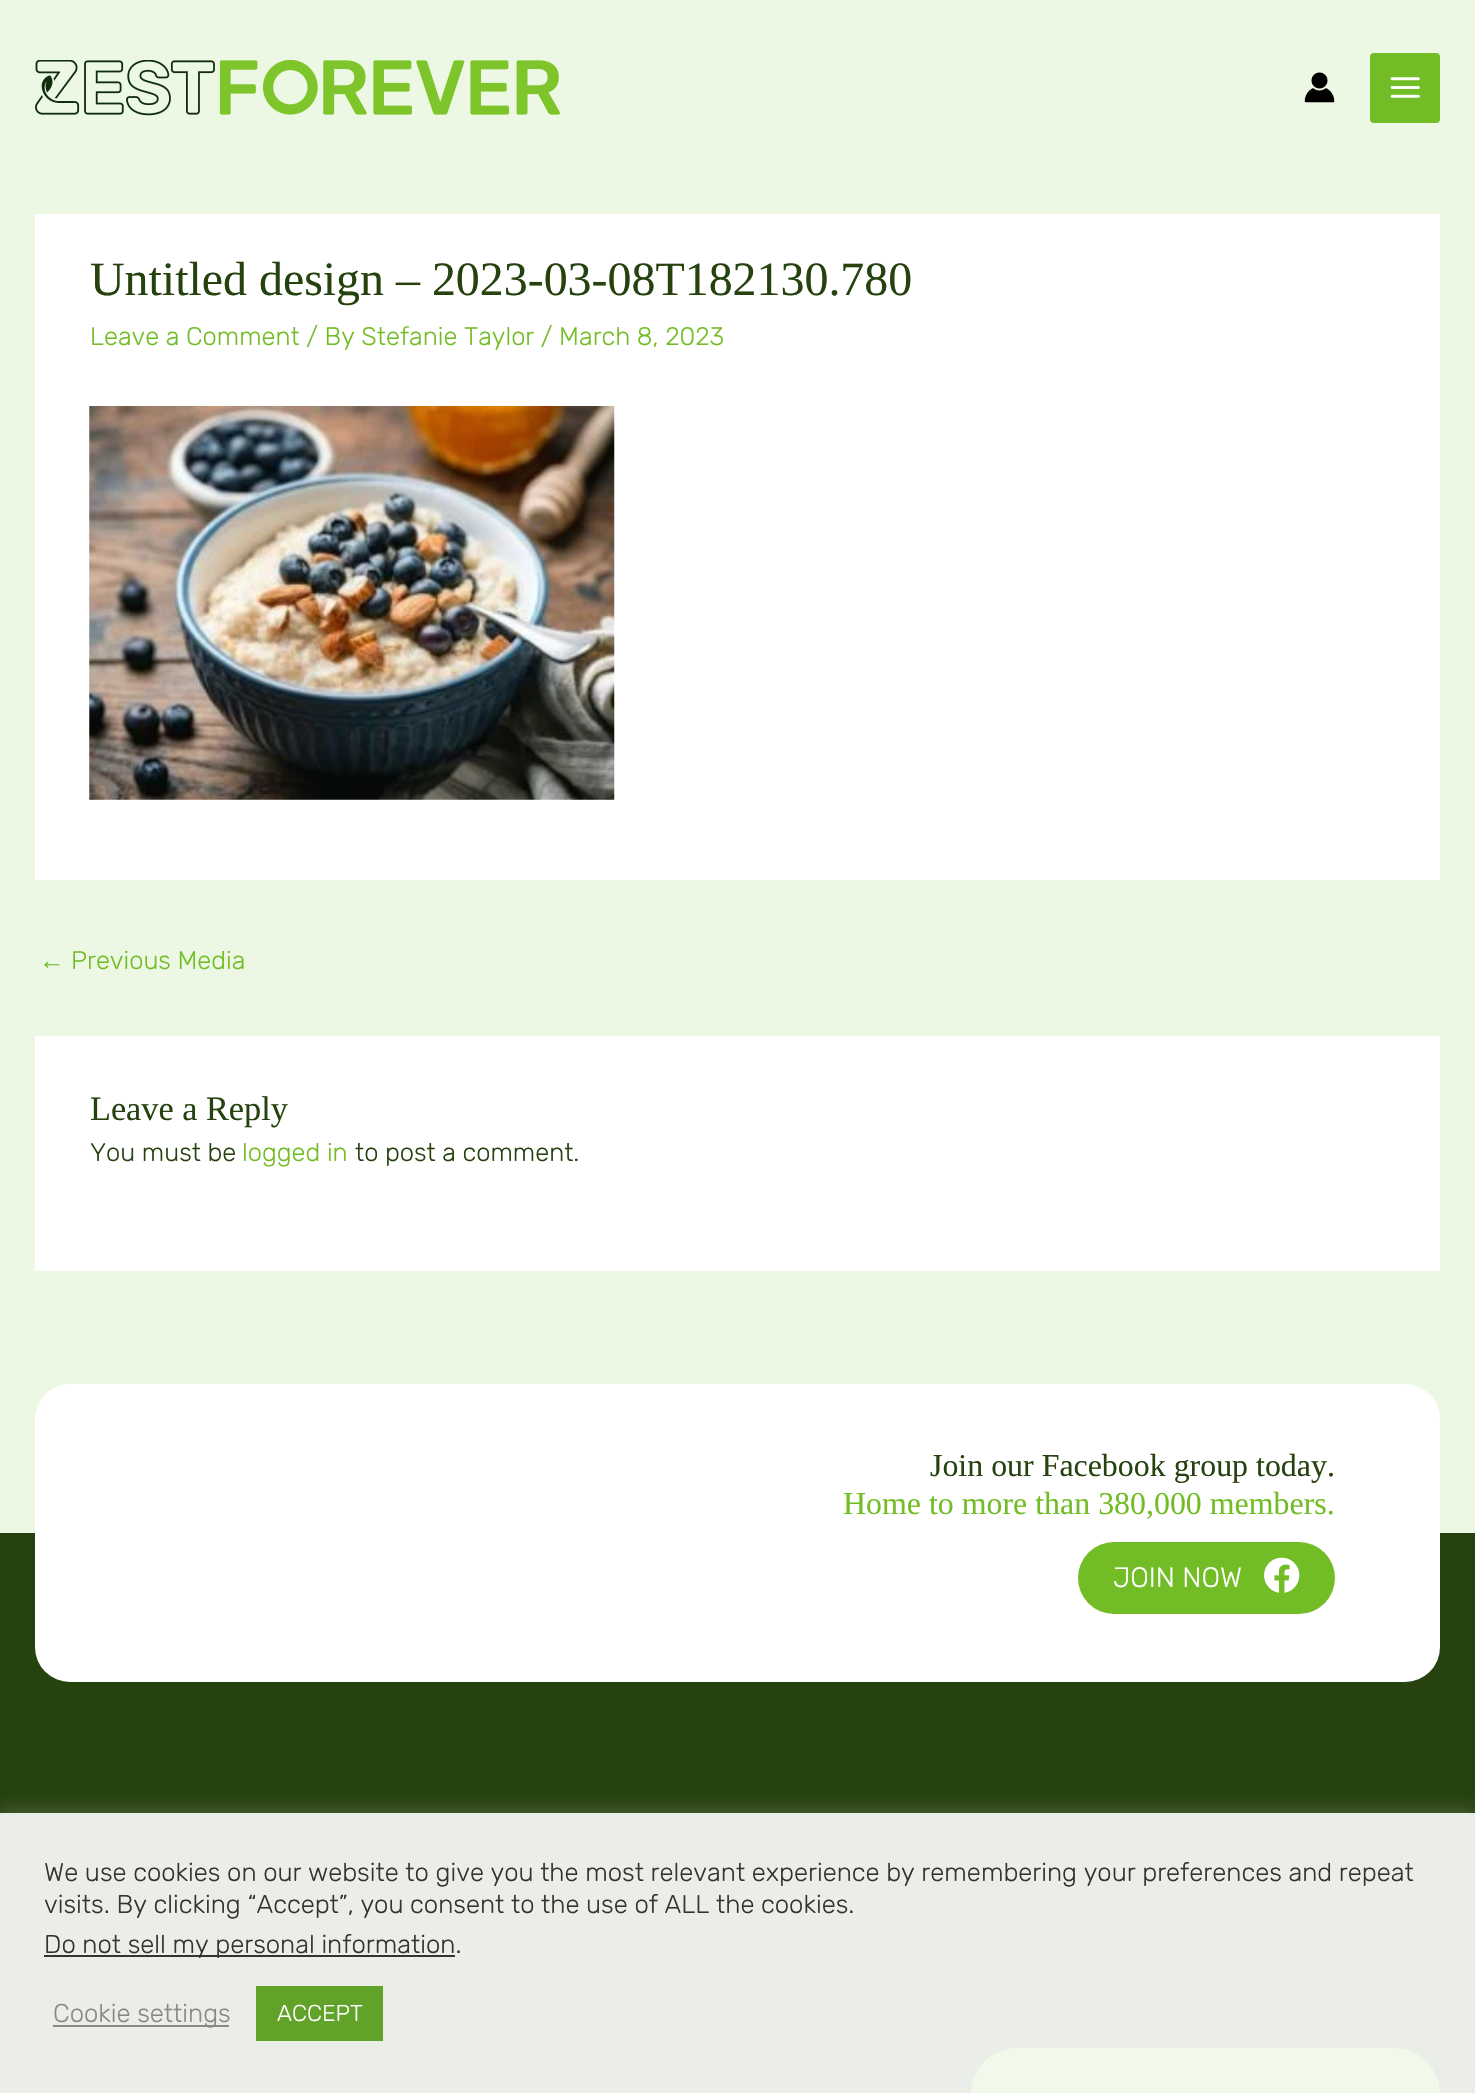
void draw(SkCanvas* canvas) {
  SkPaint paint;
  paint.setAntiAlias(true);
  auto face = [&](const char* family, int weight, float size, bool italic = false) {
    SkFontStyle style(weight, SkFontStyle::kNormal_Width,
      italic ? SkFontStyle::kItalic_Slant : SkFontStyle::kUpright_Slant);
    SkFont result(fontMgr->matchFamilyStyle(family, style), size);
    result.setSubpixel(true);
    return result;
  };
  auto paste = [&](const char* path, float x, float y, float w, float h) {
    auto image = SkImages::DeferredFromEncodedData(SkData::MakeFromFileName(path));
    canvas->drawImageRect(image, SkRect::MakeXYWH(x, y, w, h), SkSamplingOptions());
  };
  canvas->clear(0xffedf8e4);
  paste("img/1.png", 35, 60, 525, 56);
  paste("img/2.png", 1304, 72, 31, 31);
  paint.setColor(0xff72bd25);
  canvas->drawRoundRect(SkRect::MakeXYWH(1370, 53, 70, 70), 4, 4, paint);
  paste("img/3.png", 1390, 77, 30, 21);
  paint.setColor(0xffffffff);
  canvas->drawRect(SkRect::MakeXYWH(35, 214, 1405, 666), paint);
  paste("img/4.png", 89, 406, 526, 394);
  canvas->drawRect(SkRect::MakeXYWH(35, 1036, 1405, 235), paint);
  paint.setColor(0xff26420e);
  canvas->drawRect(SkRect::MakeXYWH(0, 1533, 1475, 560), paint);
  paint.setColor(0xffffffff);
  canvas->drawRoundRect(SkRect::MakeXYWH(35, 1384, 1405, 298), 35, 35, paint);
  paint.setColor(0xff72bd25);
  canvas->drawRoundRect(SkRect::MakeXYWH(1078, 1542, 257, 72), 36, 36, paint);
  paste("img/5.png", 1264, 1557, 36, 36);
  canvas->drawRoundRect(SkRect::MakeXYWH(971, 2048, 469, 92), 47, 47, paint);
  canvas->save();
  canvas->clipRect(SkRect::MakeXYWH(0, 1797, 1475, 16));
  paint.setColor(0x4dacabab);
  paint.setMaskFilter(SkMaskFilter::MakeBlur(kNormal_SkBlurStyle, 9));
  canvas->drawRect(SkRect::MakeXYWH(0, 1811, 1475, 280), paint);
  paint.setMaskFilter(nullptr);
  canvas->restore();
  {
    const struct { float x, y, w, h; SkColor color; } items[] = {
      {0, 1813, 1475, 280, 0xe6ffffff},
      {44, 1955, 411, 2, 0xff333333},
      {53, 2025, 176, 2, 0xff898888},
      {256, 1986, 127, 55, 0xff61a229},
    };
    for (auto [x, y, w, h, color] : items) {
      paint.setColor(color);
      canvas->drawRect(SkRect::MakeXYWH(x, y, w, h), paint);
    }
  }
  auto f0 = face("Liberation Serif", 400, 47.9f);
  paint.setColor(0xff26420e);
  canvas->drawString("Untitled design – 2023-03-08T182130.780", 90, 295, f0, paint);
  auto f1 = face("Rubik", 300, 25.5f);
  paint.setColor(0xff72bd25);
  canvas->drawString("Leave a Comment / By Stefanie Taylor / March 8, 2023", 90, 345, f1, paint);
  auto f2 = face("Liberation Sans", 400, 25.5f);
  canvas->drawString("←", 39, 969, f2, paint);
  canvas->drawString("Previous Media", 71, 969, f1, paint);
  auto f3 = face("Liberation Serif", 400, 34.25f);
  paint.setColor(0xff26420e);
  canvas->drawString("Leave a Reply", 90, 1120, f3, paint);
  canvas->drawString("You must be", 90, 1161, f1, paint);
  paint.setColor(0xff72bd25);
  canvas->drawString("logged in", 242, 1161, f1, paint);
  paint.setColor(0xff26420e);
  canvas->drawString("to post a comment.", 355, 1161, f1, paint);
  auto f4 = face("Liberation Serif", 400, 31.9f);
  canvas->drawString("Join our Facebook group today.", 930, 1476, f4, paint);
  paint.setColor(0xff72bd25);
  canvas->drawString("Home to more than 380,000 members.", 843, 1514, f4, paint);
  auto f5 = face("Rubik", 300, 28);
  paint.setColor(0xffffffff);
  canvas->drawString("JOIN NOW", 1113, 1587, f5, paint);
  auto f6 = face("Rubik", 300, 25.67f);
  paint.setColor(0xff333333);
  {
    const struct { const char* s; float x, y; } items[] = {
      {"We use cookies on our website to give you the most relevant experience by remembering your preferences and repeat", 44, 1881},
      {"visits. By clicking “Accept”, you consent to the use of ALL the cookies.", 44, 1913},
      {"Do not sell my personal information.", 44, 1953},
    };
    for (auto [s, x, y] : items) {
      canvas->drawString(s, x, y, f6, paint);
    }
  }
  paint.setColor(0xff898888);
  canvas->drawString("Cookie settings", 53, 2022, f6, paint);
  auto f7 = face("Rubik", 300, 23);
  paint.setColor(0xffffffff);
  canvas->drawString("ACCEPT", 277, 2021, f7, paint);
}
